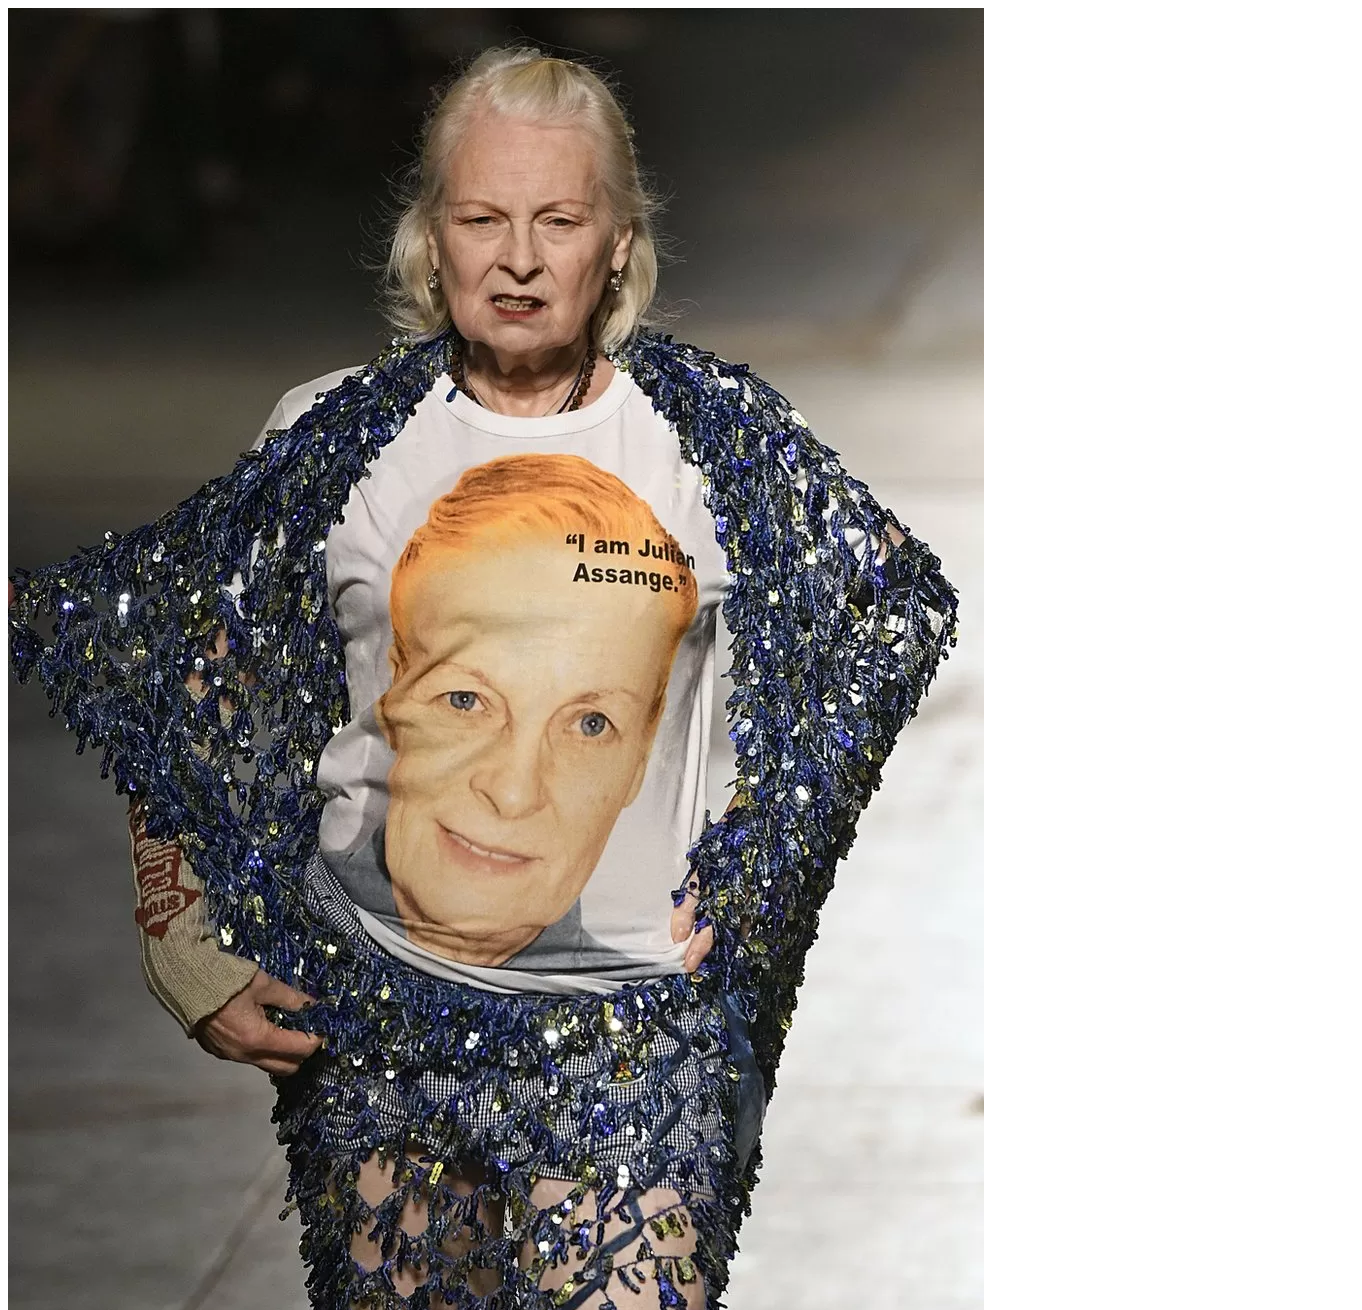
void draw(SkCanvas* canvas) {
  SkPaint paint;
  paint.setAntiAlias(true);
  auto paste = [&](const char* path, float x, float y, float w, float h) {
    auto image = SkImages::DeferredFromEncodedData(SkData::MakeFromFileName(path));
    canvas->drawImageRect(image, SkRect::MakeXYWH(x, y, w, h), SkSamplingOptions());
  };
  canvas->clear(0xffffffff);
  paste("img/1.png", 8, 8, 976, 1302);
}
